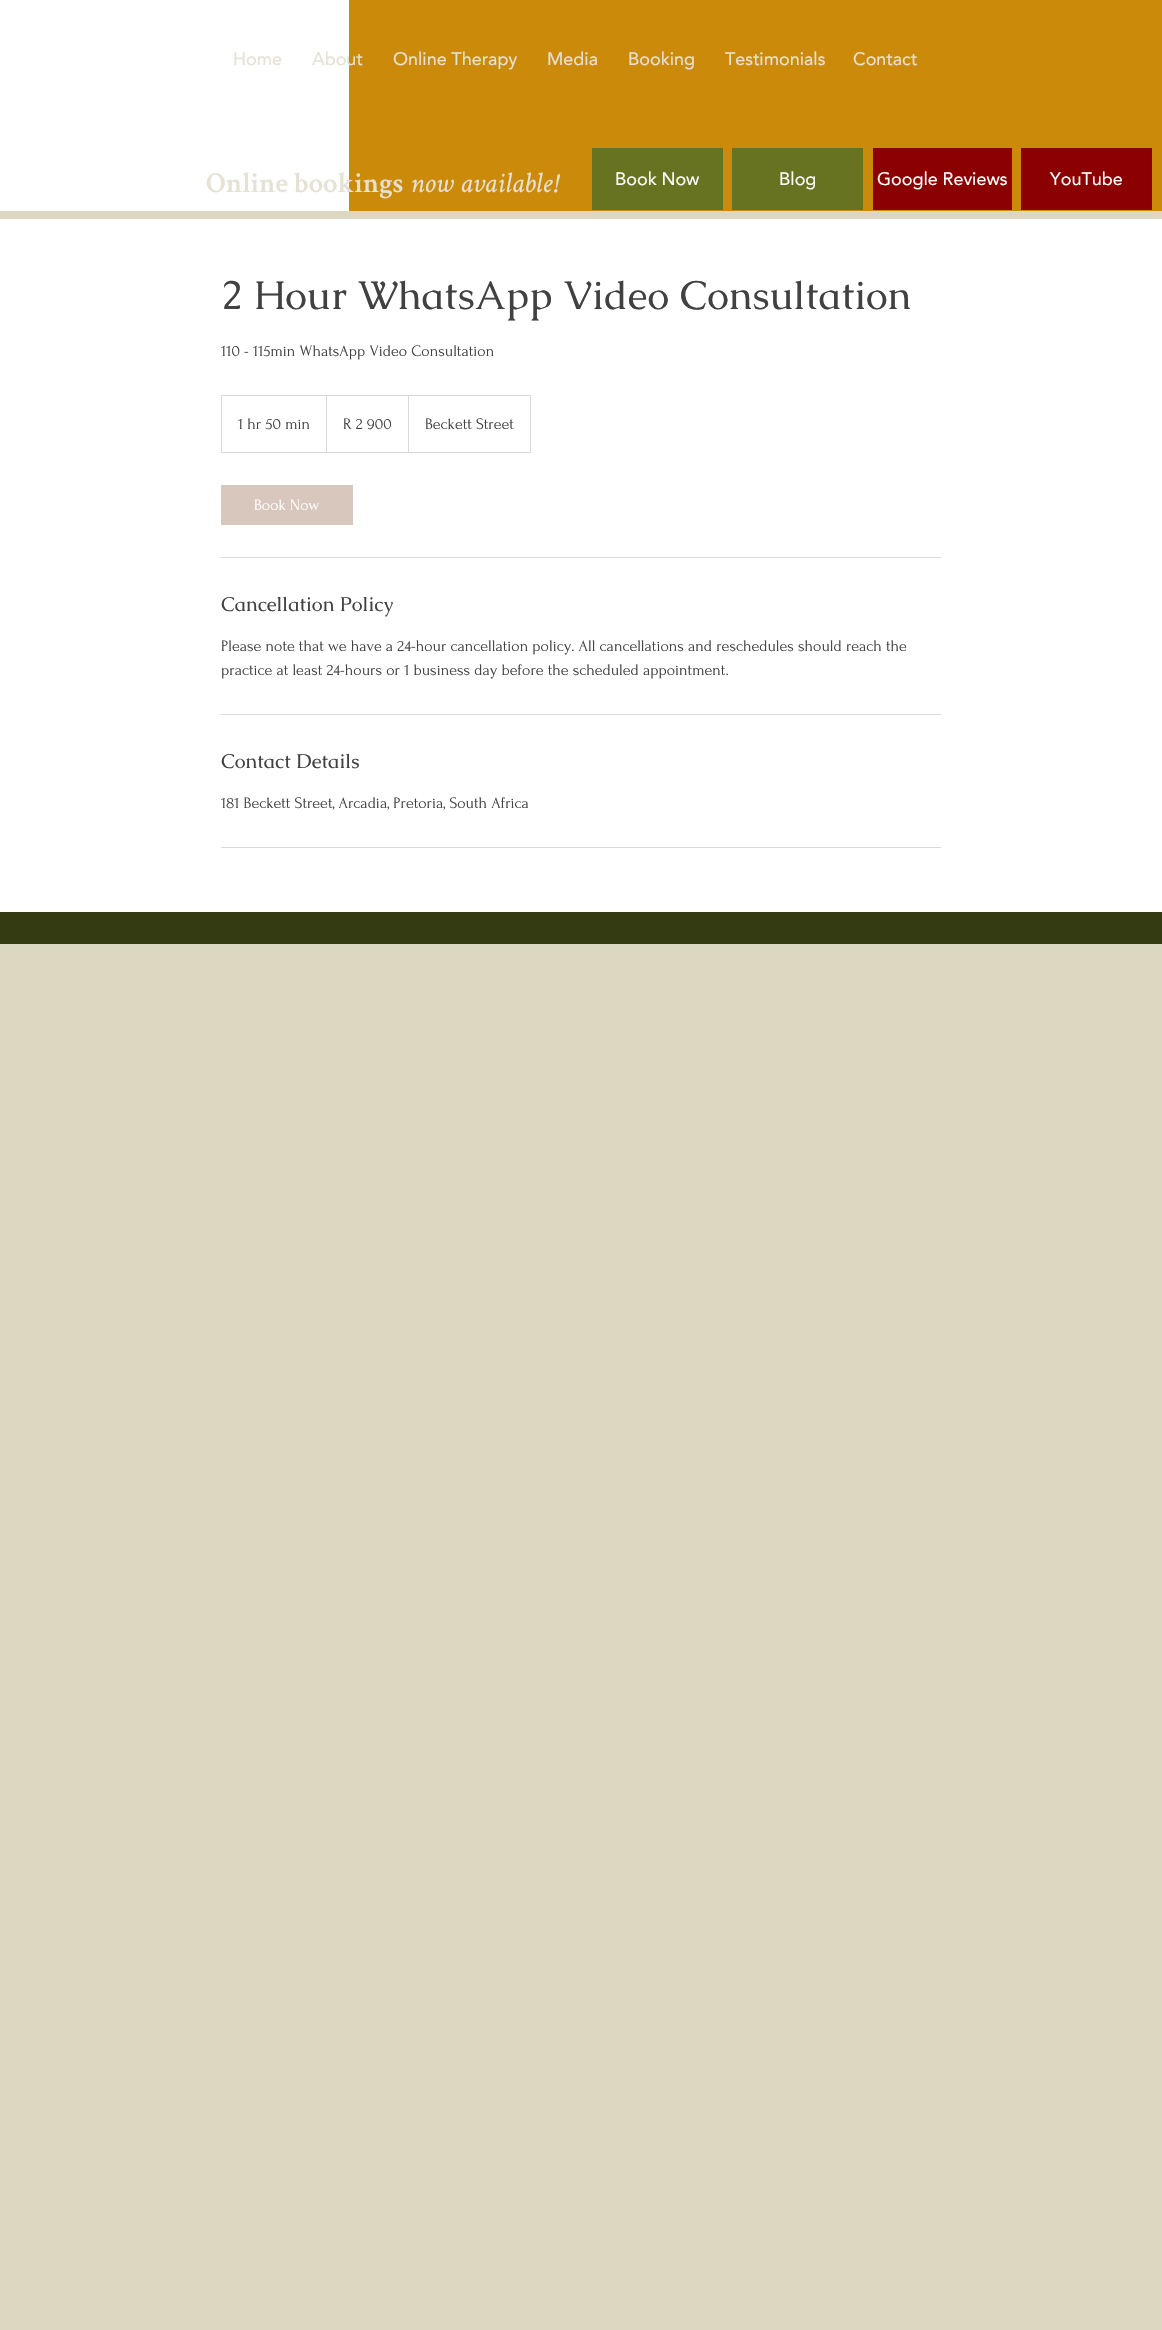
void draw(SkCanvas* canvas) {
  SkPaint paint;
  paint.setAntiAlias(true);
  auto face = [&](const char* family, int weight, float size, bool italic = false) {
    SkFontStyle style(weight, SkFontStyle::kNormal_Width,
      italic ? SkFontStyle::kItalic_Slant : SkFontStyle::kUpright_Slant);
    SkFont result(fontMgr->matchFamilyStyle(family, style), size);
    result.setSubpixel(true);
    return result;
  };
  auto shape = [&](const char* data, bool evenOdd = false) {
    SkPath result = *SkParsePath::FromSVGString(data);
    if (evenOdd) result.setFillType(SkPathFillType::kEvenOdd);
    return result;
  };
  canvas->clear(0xffdbd7c1);
  {
    const struct { float x, y, w, h; SkColor color; } items[] = {
      {0, 0, 349, 211, 0xffffffff},
      {349, 0, 813, 211, 0xffcc8a0a},
      {592, 148, 131, 62, 0xff687322},
      {732, 148, 131, 62, 0xff687322},
      {873, 148, 139, 62, 0xff8b0000},
      {1021, 148, 131, 62, 0xff8b0000},
      {0, 219, 1162, 693, 0xffffffff},
    };
    for (auto [x, y, w, h, color] : items) {
      paint.setColor(color);
      canvas->drawRect(SkRect::MakeXYWH(x, y, w, h), paint);
    }
  }
  paint.setStroke(true);
  paint.setStrokeWidth(1);
  paint.setColor(0xffd9d9d9);
  canvas->drawRect(SkRect::MakeXYWH(221.5f, 395.5f, 309, 57), paint);
  paint.setStroke(false);
  canvas->drawPath(shape("M326 452V395L327 396V452Z"), paint);
  canvas->drawPath(shape("M408 452V395L409 396V452Z"), paint);
  {
    const struct { float x, y, w, h; SkColor color; } items[] = {
      {221, 485, 132, 40, 0xffd8c7bd},
      {221, 557, 720, 1, 0xffd9d9d9},
      {221, 714, 720, 1, 0xffd9d9d9},
      {221, 847, 720, 1, 0xffd9d9d9},
      {0, 912, 1162, 32, 0xff343a11},
    };
    for (auto [x, y, w, h, color] : items) {
      paint.setColor(color);
      canvas->drawRect(SkRect::MakeXYWH(x, y, w, h), paint);
    }
  }
  auto f0 = face("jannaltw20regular", 400, 18);
  paint.setColor(0xffe5e1d3);
  {
    const struct { const char* s; float x, y; } items[] = {
      {"Home", 233, 65},
      {"About", 312, 65},
      {"Online Therapy", 393, 65},
      {"Media", 547, 65},
      {"Booking", 628, 65},
      {"Testimonials", 725, 65},
      {"Contact", 853, 65},
    };
    for (auto [s, x, y] : items) {
      canvas->drawString(s, x, y, f0, paint);
    }
  }
  auto f1 = face("Crimson Text", 600, 29);
  canvas->drawString("Online bookings", 206, 192, f1, paint);
  auto f2 = face("Crimson Text", 400, 29, true);
  canvas->drawString("now available!", 410, 192, f2, paint);
  paint.setColor(0xffffffff);
  {
    const struct { const char* s; float x, y; } items[] = {
      {"Book Now", 615, 185},
      {"Blog", 779, 185},
      {"Google Reviews", 877, 185},
      {"YouTube", 1050, 185},
    };
    for (auto [s, x, y] : items) {
      canvas->drawString(s, x, y, f0, paint);
    }
  }
  auto f3 = face("Caudex", 400, 40);
  paint.setColor(0xff414141);
  canvas->drawString("2 Hour WhatsApp Video Consultation", 221, 309, f3, paint);
  auto f4 = face("Forum", 400, 16);
  {
    const struct { const char* s; float x, y; } items[] = {
      {"110 - 115min WhatsApp Video Consultation", 221, 356},
      {"1 hr 50 min", 238, 429},
      {"R 2 900", 343, 429},
      {"Beckett Street", 425, 429},
    };
    for (auto [s, x, y] : items) {
      canvas->drawString(s, x, y, f4, paint);
    }
  }
  paint.setColor(0xffffffff);
  canvas->drawString("Book Now", 254, 510, f4, paint);
  auto f5 = face("Caudex", 400, 20);
  paint.setColor(0xff414141);
  canvas->drawString("Cancellation Policy", 221, 611, f5, paint);
  canvas->drawString("Please note that we have a 24-hour cancellation policy. All cancellations and reschedules should reach the", 221, 651, f4, paint);
  canvas->drawString("practice at least 24-hours or 1 business day before the scheduled appointment.", 221, 675, f4, paint);
  canvas->drawString("Contact Details", 221, 768, f5, paint);
  canvas->drawString("181 Beckett Street, Arcadia, Pretoria, South Africa", 221, 808, f4, paint);
}
